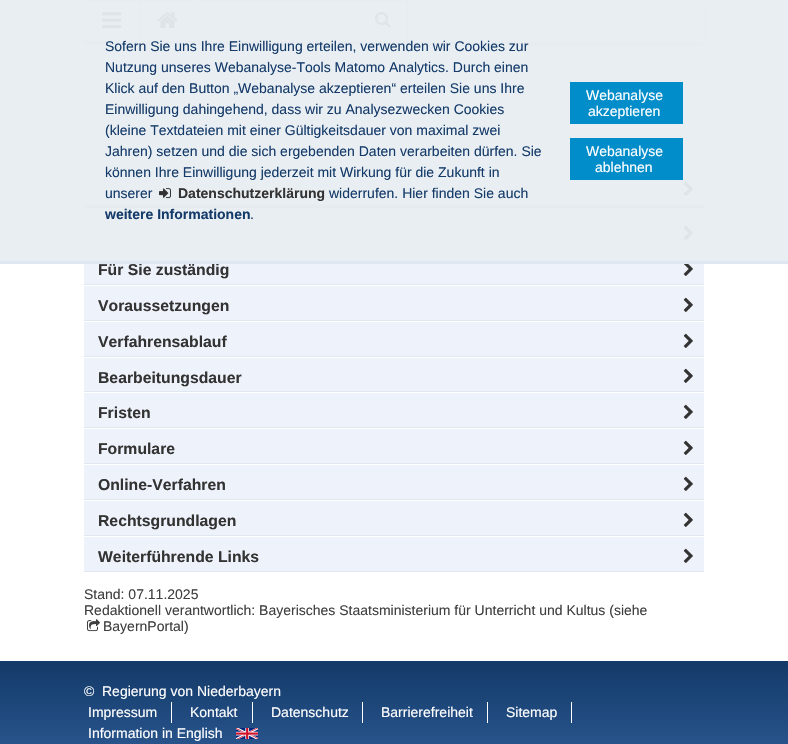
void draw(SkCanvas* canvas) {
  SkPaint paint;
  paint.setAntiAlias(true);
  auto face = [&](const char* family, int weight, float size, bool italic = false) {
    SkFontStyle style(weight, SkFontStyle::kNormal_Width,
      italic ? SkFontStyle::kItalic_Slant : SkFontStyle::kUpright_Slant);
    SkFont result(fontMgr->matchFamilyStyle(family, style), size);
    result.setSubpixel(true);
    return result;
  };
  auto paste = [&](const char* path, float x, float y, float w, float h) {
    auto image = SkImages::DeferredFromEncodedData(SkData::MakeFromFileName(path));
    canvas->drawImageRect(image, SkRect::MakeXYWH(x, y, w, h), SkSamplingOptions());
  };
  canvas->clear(0xffffffff);
  paint.setColor(0x4d000000);
  paint.setMaskFilter(SkMaskFilter::MakeBlur(kNormal_SkBlurStyle, 2.5f));
  canvas->drawRect(SkRect::MakeXYWH(84, 2, 620, 42), paint);
  paint.setMaskFilter(nullptr);
  {
    const struct { float x, y, w, h; SkColor color; } items[] = {
      {196, 0, 508, 42, 0xffffffff},
      {84, 1, 55, 40, 0xfff3f3f3},
      {84, 0, 112, 1, 0xffd7d7d7},
      {139, 0, 1, 42, 0xffd7d7d7},
      {84, 41, 56, 1, 0xffd7d7d7},
    };
    for (auto [x, y, w, h, color] : items) {
      paint.setColor(color);
      canvas->drawRect(SkRect::MakeXYWH(x, y, w, h), paint);
    }
  }
  paste("img/2.png", 102, 12, 20, 17);
  {
    const struct { float x, y, w, h; SkColor color; } items[] = {
      {140, 1, 55, 40, 0xfff3f3f3},
      {195, 0, 1, 42, 0xffd7d7d7},
      {140, 41, 56, 1, 0xffd7d7d7},
    };
    for (auto [x, y, w, h, color] : items) {
      paint.setColor(color);
      canvas->drawRect(SkRect::MakeXYWH(x, y, w, h), paint);
    }
  }
  paste("img/3.png", 157, 12, 21, 17);
  paint.setStroke(true);
  paint.setStrokeWidth(1);
  canvas->drawRect(SkRect::MakeXYWH(198.5f, 0.5f, 209, 41), paint);
  paste("img/4.png", 375, 11, 16, 17);
  paint.setStroke(false);
  {
    const struct { float x, y, w, h; SkColor color; } items[] = {
      {84, 205, 620, 3, 0xffc3c3c3},
      {84, 170, 620, 34, 0xffeef3fb},
      {84, 204, 620, 1, 0xffe1e7f0},
    };
    for (auto [x, y, w, h, color] : items) {
      paint.setColor(color);
      canvas->drawRect(SkRect::MakeXYWH(x, y, w, h), paint);
    }
  }
  paste("img/5.png", 683, 181, 10, 15);
  paint.setColor(0xffeef3fb);
  canvas->drawRect(SkRect::MakeXYWH(84, 214, 620, 34), paint);
  paint.setColor(0xffe1e7f0);
  canvas->drawRect(SkRect::MakeXYWH(84, 248, 620, 1), paint);
  paste("img/5.png", 683, 225, 10, 15);
  paint.setColor(0xffeef3fb);
  canvas->drawRect(SkRect::MakeXYWH(84, 250, 620, 34), paint);
  paint.setColor(0xf2e8edf1);
  canvas->drawRect(SkRect::MakeXYWH(0, 0, 788, 261), paint);
  paste("img/1.png", 159, 188, 12, 11);
  {
    const struct { float x, y, w, h; SkColor color; } items[] = {
      {570, 82, 113, 42, 0xff008dc9},
      {570, 138, 113, 42, 0xff008dc9},
      {84, 284, 620, 1, 0xffe1e7f0},
    };
    for (auto [x, y, w, h, color] : items) {
      paint.setColor(color);
      canvas->drawRect(SkRect::MakeXYWH(x, y, w, h), paint);
    }
  }
  paste("img/6.png", 683, 264, 10, 12);
  paint.setColor(0xffeef3fb);
  canvas->drawRect(SkRect::MakeXYWH(84, 286, 620, 34), paint);
  paint.setColor(0xffe1e7f0);
  canvas->drawRect(SkRect::MakeXYWH(84, 320, 620, 1), paint);
  paste("img/5.png", 683, 297, 10, 15);
  paint.setColor(0xffeef3fb);
  canvas->drawRect(SkRect::MakeXYWH(84, 322, 620, 34), paint);
  paint.setColor(0xffe1e7f0);
  canvas->drawRect(SkRect::MakeXYWH(84, 356, 620, 1), paint);
  paste("img/5.png", 683, 333, 10, 15);
  paint.setColor(0xffeef3fb);
  canvas->drawRect(SkRect::MakeXYWH(84, 358, 620, 33), paint);
  paint.setColor(0xffe1e7f0);
  canvas->drawRect(SkRect::MakeXYWH(84, 391, 620, 1), paint);
  paste("img/5.png", 683, 368, 10, 15);
  paint.setColor(0xffeef3fb);
  canvas->drawRect(SkRect::MakeXYWH(84, 393, 620, 34), paint);
  paint.setColor(0xffe1e7f0);
  canvas->drawRect(SkRect::MakeXYWH(84, 427, 620, 1), paint);
  paste("img/5.png", 683, 404, 10, 15);
  paint.setColor(0xffeef3fb);
  canvas->drawRect(SkRect::MakeXYWH(84, 429, 620, 34), paint);
  paint.setColor(0xffe1e7f0);
  canvas->drawRect(SkRect::MakeXYWH(84, 463, 620, 1), paint);
  paste("img/5.png", 683, 440, 10, 15);
  paint.setColor(0xffeef3fb);
  canvas->drawRect(SkRect::MakeXYWH(84, 465, 620, 34), paint);
  paint.setColor(0xffe1e7f0);
  canvas->drawRect(SkRect::MakeXYWH(84, 499, 620, 1), paint);
  paste("img/5.png", 683, 476, 10, 15);
  paint.setColor(0xffeef3fb);
  canvas->drawRect(SkRect::MakeXYWH(84, 501, 620, 34), paint);
  paint.setColor(0xffe1e7f0);
  canvas->drawRect(SkRect::MakeXYWH(84, 535, 620, 1), paint);
  paste("img/5.png", 683, 512, 10, 15);
  paint.setColor(0xffeef3fb);
  canvas->drawRect(SkRect::MakeXYWH(84, 537, 620, 34), paint);
  paint.setColor(0xffe1e7f0);
  canvas->drawRect(SkRect::MakeXYWH(84, 571, 620, 1), paint);
  paste("img/5.png", 683, 548, 10, 15);
  paste("img/7.png", 87, 619, 13, 13);
  {
    const SkColor colors[] = {0xff133968, 0xff2c5a93};
    const float stops[] = {0, 1};
    const SkPoint ends[] = {{394, 661}, {394, 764}};
    paint.setShader(SkGradientShader::MakeLinear(ends, colors, stops, 2, SkTileMode::kClamp));
    paint.setAlpha(255);
  }
  canvas->drawRect(SkRect::MakeXYWH(0, 661, 788, 83), paint);
  paint.setShader(nullptr);
  {
    const struct { float x, y, w, h; SkColor color; } items[] = {
      {171, 702, 1, 21, 0xffffffff},
      {252, 702, 1, 21, 0xffffffff},
      {362, 702, 1, 21, 0xffffffff},
      {487, 702, 1, 21, 0xffffffff},
      {571, 702, 1, 21, 0xffffffff},
    };
    for (auto [x, y, w, h, color] : items) {
      paint.setColor(color);
      canvas->drawRect(SkRect::MakeXYWH(x, y, w, h), paint);
    }
  }
  paste("img/8.png", 236, 728, 22, 11);
  auto f0 = face("Liberation Sans", 400, 14);
  paint.setColor(0xff153b6a);
  {
    const struct { const char* s; float x, y; } items[] = {
      {"Sofern Sie uns Ihre Einwilligung erteilen, verwenden wir Cookies zur", 105, 51},
      {"Nutzung unseres Webanalyse-Tools Matomo Analytics. Durch einen", 105, 72},
      {"Klick auf den Button „Webanalyse akzeptieren“ erteilen Sie uns Ihre", 105, 93},
      {"Einwilligung dahingehend, dass wir zu Analysezwecken Cookies", 105, 114},
      {"(kleine Textdateien mit einer Gültigkeitsdauer von maximal zwei", 105, 135},
      {"Jahren) setzen und die sich ergebenden Daten verarbeiten dürfen. Sie", 105, 156},
      {"können Ihre Einwilligung jederzeit mit Wirkung für die Zukunft in", 105, 177},
      {"unserer", 105, 198},
    };
    for (auto [s, x, y] : items) {
      canvas->drawString(s, x, y, f0, paint);
    }
  }
  auto f1 = face("Liberation Sans", 700, 14);
  paint.setColor(0xff333333);
  canvas->drawString("Datenschutzerklärung", 178, 198, f1, paint);
  paint.setColor(0xff153b6a);
  canvas->drawString("widerrufen. Hier finden Sie auch", 329, 198, f0, paint);
  canvas->drawString("weitere Informationen", 105, 219, f1, paint);
  canvas->drawString(".", 250, 219, f0, paint);
  paint.setColor(0xffffffff);
  {
    const struct { const char* s; float x, y; } items[] = {
      {"Webanalyse", 586, 100},
      {"akzeptieren", 588, 116},
      {"Webanalyse", 586, 156},
      {"ablehnen", 595, 172},
    };
    for (auto [s, x, y] : items) {
      canvas->drawString(s, x, y, f0, paint);
    }
  }
  auto f2 = face("Liberation Sans", 700, 15.75f);
  paint.setColor(0xff333333);
  canvas->drawString("Für Sie zuständig", 98, 275, f2, paint);
  paint.setColor(0xffe1e7f0);
  canvas->drawRect(SkRect::MakeXYWH(0, 261, 788, 3), paint);
  paint.setColor(0xff333333);
  {
    const struct { const char* s; float x, y; } items[] = {
      {"Voraussetzungen", 98, 311},
      {"Verfahrensablauf", 98, 347},
      {"Bearbeitungsdauer", 98, 383},
      {"Fristen", 98, 418},
      {"Formulare", 98, 454},
      {"Online-Verfahren", 98, 490},
      {"Rechtsgrundlagen", 98, 526},
      {"Weiterführende Links", 98, 562},
    };
    for (auto [s, x, y] : items) {
      canvas->drawString(s, x, y, f2, paint);
    }
  }
  paint.setColor(0xff3f3f3f);
  {
    const struct { const char* s; float x, y; } items[] = {
      {"Stand: 07.11.2025", 84, 599},
      {"Redaktionell verantwortlich: Bayerisches Staatsministerium für Unterricht und Kultus (siehe", 84, 615},
      {"BayernPortal)", 103, 631},
    };
    for (auto [s, x, y] : items) {
      canvas->drawString(s, x, y, f0, paint);
    }
  }
  paint.setColor(0xffffffff);
  {
    const struct { const char* s; float x, y; } items[] = {
      {"©", 84, 696},
      {"Regierung von Niederbayern", 102, 696},
      {"Impressum", 88, 717},
      {"Kontakt", 190, 717},
      {"Datenschutz", 271, 717},
      {"Barrierefreiheit", 381, 717},
      {"Sitemap", 506, 717},
      {"Information in English", 88, 738},
    };
    for (auto [s, x, y] : items) {
      canvas->drawString(s, x, y, f0, paint);
    }
  }
}
